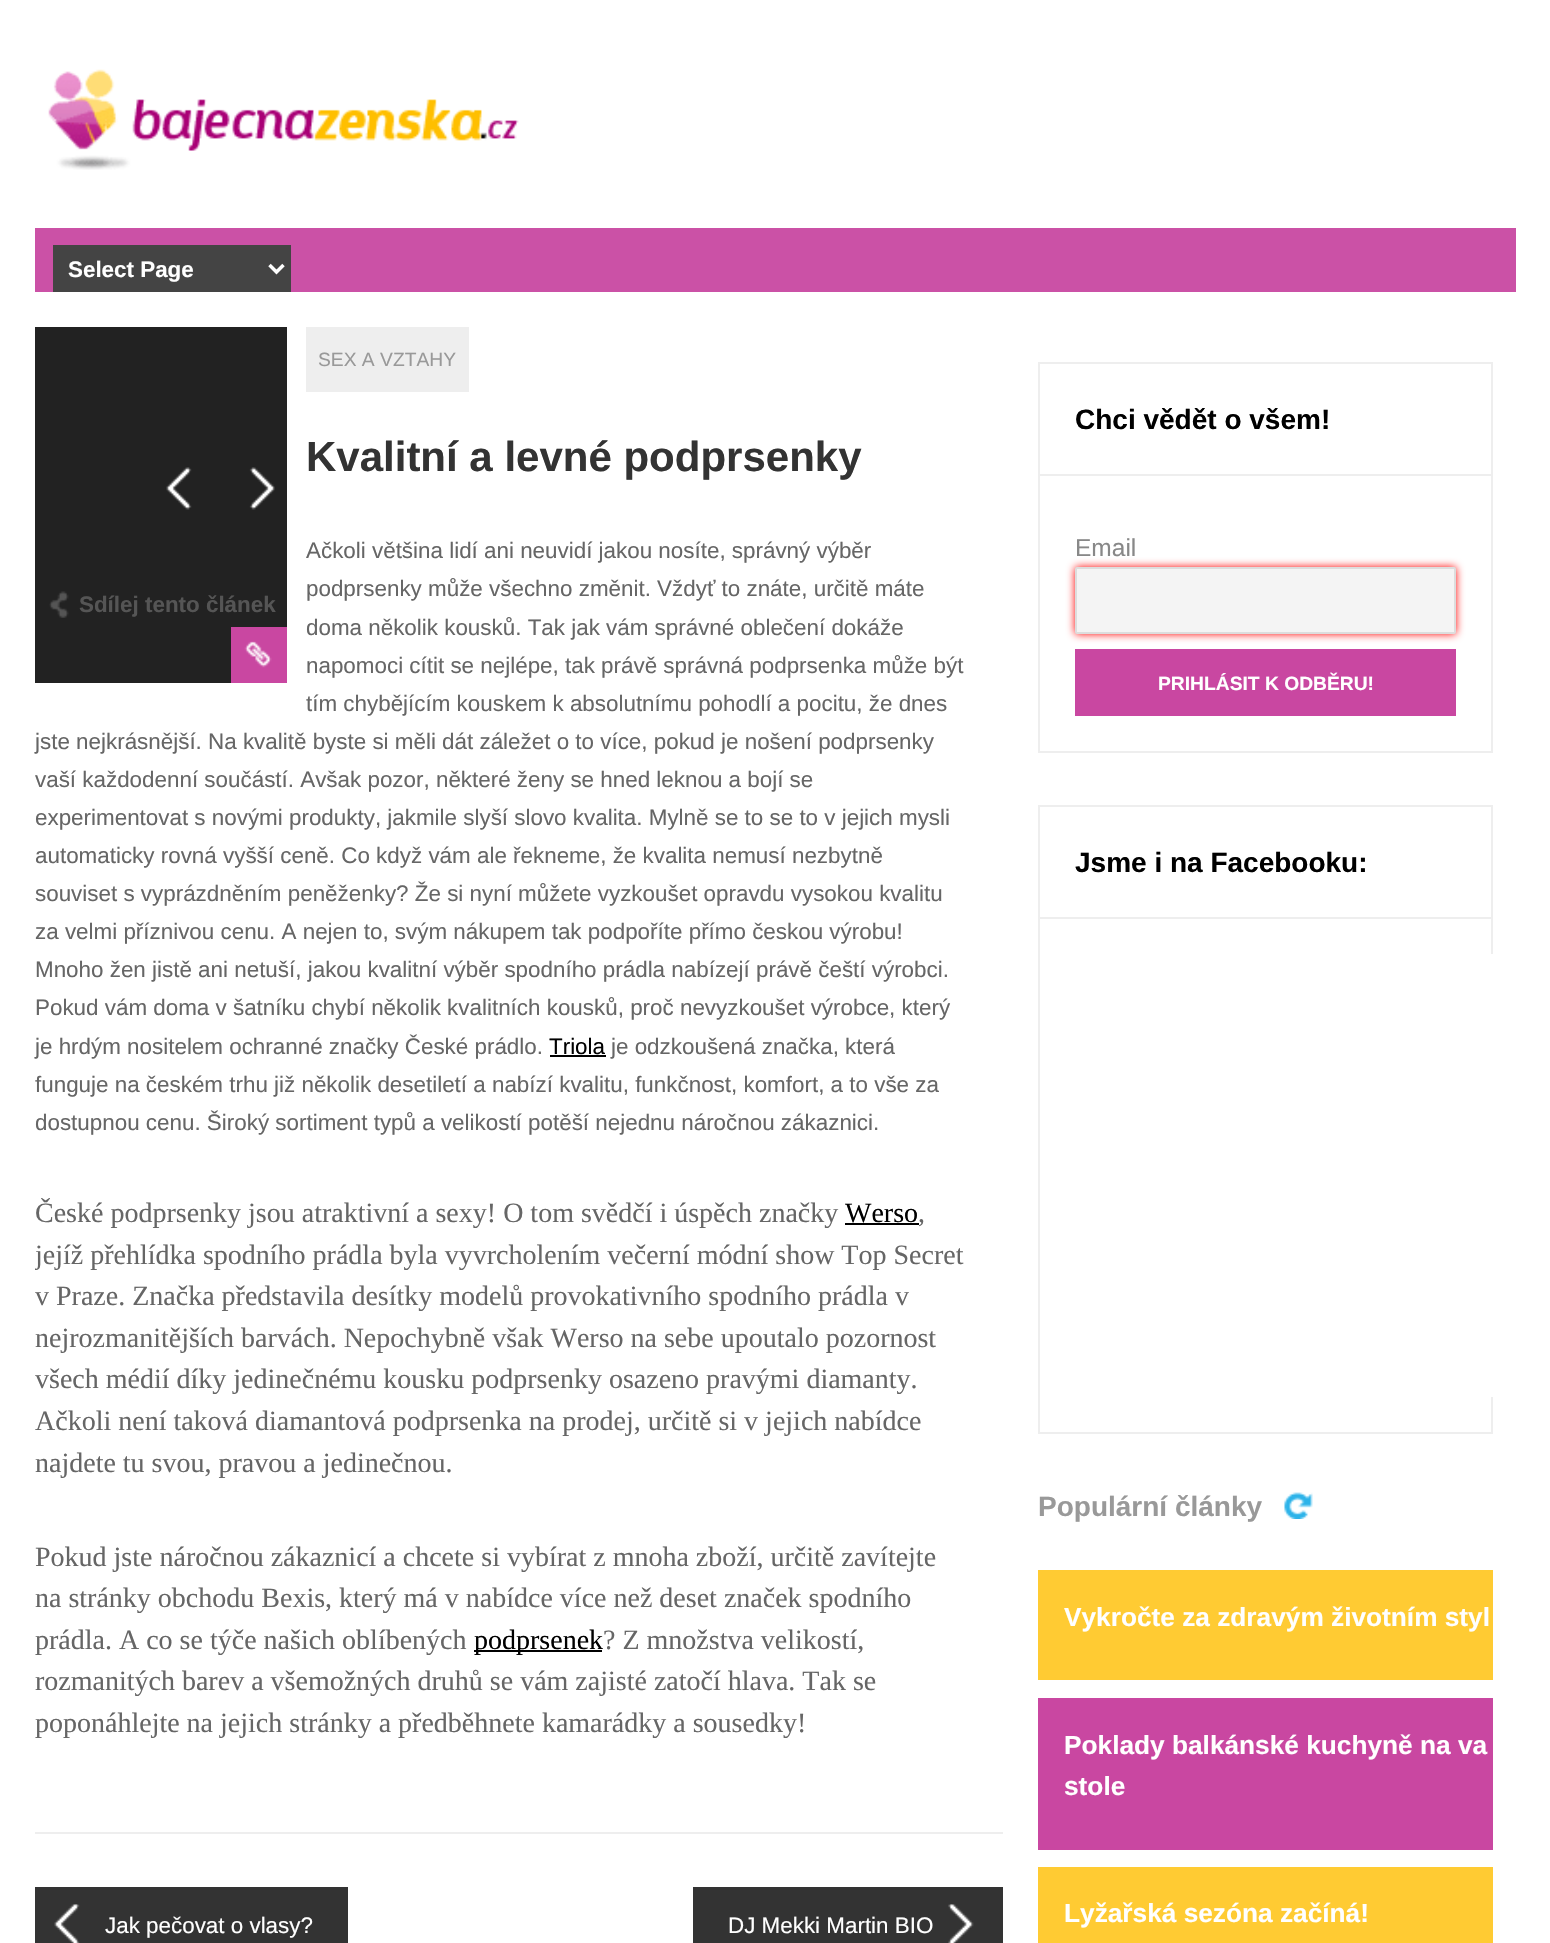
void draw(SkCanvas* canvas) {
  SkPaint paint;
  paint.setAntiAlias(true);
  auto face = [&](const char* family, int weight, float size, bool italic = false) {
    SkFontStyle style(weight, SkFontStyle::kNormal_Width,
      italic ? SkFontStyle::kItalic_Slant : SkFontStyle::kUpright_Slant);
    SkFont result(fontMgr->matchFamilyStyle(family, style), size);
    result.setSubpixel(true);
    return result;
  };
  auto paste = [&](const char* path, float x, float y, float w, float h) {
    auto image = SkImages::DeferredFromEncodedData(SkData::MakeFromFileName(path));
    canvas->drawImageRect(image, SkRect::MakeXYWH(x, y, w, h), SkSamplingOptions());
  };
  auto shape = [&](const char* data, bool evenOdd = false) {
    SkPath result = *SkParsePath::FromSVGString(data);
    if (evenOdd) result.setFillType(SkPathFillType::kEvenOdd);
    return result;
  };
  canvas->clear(0xffffffff);
  paste("img/1.png", 48, 69, 471, 101);
  paint.setColor(0xffcb51a6);
  canvas->drawRect(SkRect::MakeXYWH(35, 228, 1481, 64), paint);
  paint.setColor(0xff444444);
  canvas->drawRect(SkRect::MakeXYWH(53, 245, 238, 47), paint);
  paint.setStroke(true);
  paint.setStrokeWidth(3.5f);
  paint.setColor(0xffffffff);
  canvas->drawPath(shape("M269.5 265L276.5 272L283.5 265"), paint);
  paint.setStroke(false);
  {
    const struct { float x, y, w, h; SkColor color; } items[] = {
      {35, 1832, 968, 2, 0xffeeeeee},
      {306, 327, 163, 65, 0xffeeeeee},
      {550, 1055, 56, 2, 0xff000000},
      {845, 1223, 74, 2, 0xff000000},
      {474, 1650, 128, 2, 0xff000000},
      {35, 327, 252, 356, 0xff222222},
    };
    for (auto [x, y, w, h, color] : items) {
      paint.setColor(color);
      canvas->drawRect(SkRect::MakeXYWH(x, y, w, h), paint);
    }
  }
  paste("img/2.png", 166, 467, 109, 43);
  paste("img/3.png", 49, 591, 20, 27);
  paint.setColor(0xffc947a1);
  canvas->drawRect(SkRect::MakeXYWH(231, 627, 56, 56), paint);
  paste("img/4.png", 244, 641, 28, 27);
  paint.setColor(0xff333333);
  canvas->drawRect(SkRect::MakeXYWH(35, 1887, 313, 56), paint);
  paste("img/5.png", 54, 1904, 26, 39);
  canvas->drawRect(SkRect::MakeXYWH(693, 1887, 310, 56), paint);
  paste("img/6.png", 948, 1904, 26, 39);
  paint.setStroke(true);
  paint.setStrokeWidth(2);
  paint.setColor(0xffeeeeee);
  canvas->drawRect(SkRect::MakeXYWH(1039, 363, 453, 112), paint);
  paint.setStroke(false);
  {
    const struct { float x, y, w, h; SkColor color; } items[] = {
      {1491, 476, 2, 277, 0xffeeeeee},
      {1038, 751, 455, 2, 0xffeeeeee},
      {1038, 476, 2, 277, 0xffeeeeee},
    };
    for (auto [x, y, w, h, color] : items) {
      paint.setColor(color);
      canvas->drawRect(SkRect::MakeXYWH(x, y, w, h), paint);
    }
  }
  paint.setColor(0xffff0000);
  paint.setMaskFilter(SkMaskFilter::MakeBlur(kNormal_SkBlurStyle, 4.5f));
  canvas->drawRoundRect(SkRect::MakeXYWH(1075, 567, 381, 67), 2, 2, paint);
  paint.setMaskFilter(nullptr);
  paint.setColor(0xfff4f4f4);
  canvas->drawRoundRect(SkRect::MakeXYWH(1076, 568, 379, 65), 1, 1, paint);
  paint.setStroke(true);
  paint.setColor(0xffdddddd);
  canvas->drawRoundRect(SkRect::MakeXYWH(1076, 568, 379, 65), 1, 1, paint);
  paint.setStroke(false);
  paint.setColor(0xffc947a1);
  canvas->drawRect(SkRect::MakeXYWH(1075, 649, 381, 67), paint);
  paint.setStroke(true);
  paint.setColor(0xffeeeeee);
  canvas->drawRect(SkRect::MakeXYWH(1039, 806, 453, 112), paint);
  paint.setStroke(false);
  {
    const struct { float x, y, w, h; SkColor color; } items[] = {
      {1491, 919, 2, 514, 0xffeeeeee},
      {1038, 1432, 455, 2, 0xffeeeeee},
      {1038, 919, 2, 514, 0xffeeeeee},
      {1491, 954, 2, 443, 0xffffffff},
    };
    for (auto [x, y, w, h, color] : items) {
      paint.setColor(color);
      canvas->drawRect(SkRect::MakeXYWH(x, y, w, h), paint);
    }
  }
  paste("img/7.png", 1284, 1492, 29, 27);
  {
    const struct { float x, y, w, h; SkColor color; } items[] = {
      {1038, 1570, 455, 110, 0xffffcb33},
      {1038, 1698, 455, 152, 0xffc947a1},
      {1038, 1867, 455, 76, 0xffffcb33},
    };
    for (auto [x, y, w, h, color] : items) {
      paint.setColor(color);
      canvas->drawRect(SkRect::MakeXYWH(x, y, w, h), paint);
    }
  }
  auto f0 = face("Liberation Sans", 700, 22.4f);
  paint.setColor(0xffffffff);
  canvas->drawString("Select Page", 68, 277, f0, paint);
  auto f1 = face("Liberation Sans", 400, 19.25f);
  paint.setColor(0xff999999);
  canvas->drawString("SEX A VZTAHY", 318, 366, f1, paint);
  auto f2 = face("Liberation Sans", 700, 42);
  paint.setColor(0xff333333);
  canvas->drawString("Kvalitní a levné podprsenky", 306, 471, f2, paint);
  auto f3 = face("Liberation Sans", 400, 22.4f);
  paint.setColor(0xff666666);
  {
    const struct { const char* s; float x, y; } items[] = {
      {"Ačkoli většina lidí ani neuvidí jakou nosíte, správný výběr", 306, 558},
      {"podprsenky může všechno změnit. Vždyť to znáte, určitě máte", 306, 596},
      {"doma několik kousků. Tak jak vám správné oblečení dokáže", 306, 635},
      {"napomoci cítit se nejlépe, tak právě správná podprsenka může být", 306, 673},
      {"tím chybějícím kouskem k absolutnímu pohodlí a pocitu, že dnes", 306, 711},
      {"jste nejkrásnější. Na kvalitě byste si měli dát záležet o to více, pokud je nošení podprsenky", 35, 749},
      {"vaší každodenní součástí. Avšak pozor, některé ženy se hned leknou a bojí se", 35, 787},
      {"experimentovat s novými produkty, jakmile slyší slovo kvalita. Mylně se to se to v jejich mysli", 35, 825},
      {"automaticky rovná vyšší ceně. Co když vám ale řekneme, že kvalita nemusí nezbytně", 35, 863},
      {"souviset s vyprázdněním peněženky? Že si nyní můžete vyzkoušet opravdu vysokou kvalitu", 35, 901},
      {"za velmi příznivou cenu. A nejen to, svým nákupem tak podpoříte přímo českou výrobu!", 35, 939},
      {"Mnoho žen jistě ani netuší, jakou kvalitní výběr spodního prádla nabízejí právě čeští výrobci.", 35, 977},
      {"Pokud vám doma v šatníku chybí několik kvalitních kousků, proč nevyzkoušet výrobce, který", 35, 1015},
      {"je hrdým nositelem ochranné značky České prádlo.", 35, 1054},
    };
    for (auto [s, x, y] : items) {
      canvas->drawString(s, x, y, f3, paint);
    }
  }
  paint.setColor(0xff000000);
  canvas->drawString("Triola", 549, 1054, f3, paint);
  paint.setColor(0xff666666);
  {
    const struct { const char* s; float x, y; } items[] = {
      {"je odzkoušená značka, která", 611, 1054},
      {"funguje na českém trhu již několik desetiletí a nabízí kvalitu, funkčnost, komfort, a to vše za", 35, 1092},
      {"dostupnou cenu. Široký sortiment typů a velikostí potěší nejednu náročnou zákaznici.", 35, 1130},
    };
    for (auto [s, x, y] : items) {
      canvas->drawString(s, x, y, f3, paint);
    }
  }
  auto f4 = face("Liberation Serif", 400, 28);
  canvas->drawString("České podprsenky jsou atraktivní a sexy! O tom svědčí i úspěch značky", 35, 1222, f4, paint);
  paint.setColor(0xff000000);
  canvas->drawString("Werso", 845, 1222, f4, paint);
  paint.setColor(0xff666666);
  canvas->drawString(",", 918, 1222, f4, paint);
  canvas->save();
  canvas->clipRect(SkRect::MakeXYWH(35, 327, 968, 1505));
  canvas->drawString("jejíž přehlídka spodního prádla byla vyvrcholením večerní módní show Top Secret", 35, 1264, f4, paint);
  canvas->restore();
  {
    const struct { const char* s; float x, y; } items[] = {
      {"v Praze. Značka představila desítky modelů provokativního spodního prádla v", 35, 1305},
      {"nejrozmanitějších barvách. Nepochybně však Werso na sebe upoutalo pozornost", 35, 1347},
      {"všech médií díky jedinečnému kousku podprsenky osazeno pravými diamanty.", 35, 1388},
      {"Ačkoli není taková diamantová podprsenka na prodej, určitě si v jejich nabídce", 35, 1430},
      {"najdete tu svou, pravou a jedinečnou.", 35, 1472},
      {"Pokud jste náročnou zákaznicí a chcete si vybírat z mnoha zboží, určitě zavítejte", 35, 1566},
      {"na stránky obchodu Bexis, který má v nabídce více než deset značek spodního", 35, 1607},
      {"prádla. A co se týče našich oblíbených", 35, 1649},
    };
    for (auto [s, x, y] : items) {
      canvas->drawString(s, x, y, f4, paint);
    }
  }
  paint.setColor(0xff000000);
  canvas->drawString("podprsenek", 474, 1649, f4, paint);
  paint.setColor(0xff666666);
  {
    const struct { const char* s; float x, y; } items[] = {
      {"? Z množstva velikostí,", 603, 1649},
      {"rozmanitých barev a všemožných druhů se vám zajisté zatočí hlava. Tak se", 35, 1690},
      {"poponáhlejte na jejich stránky a předběhnete kamarádky a sousedky!", 35, 1732},
    };
    for (auto [s, x, y] : items) {
      canvas->drawString(s, x, y, f4, paint);
    }
  }
  paint.setColor(0xff555555);
  canvas->drawString("Sdílej tento článek", 79, 612, f0, paint);
  paint.setColor(0xffffffff);
  canvas->drawString("Jak pečovat o vlasy?", 105, 1933, f3, paint);
  canvas->drawString("DJ Mekki Martin BIO", 728, 1933, f3, paint);
  auto f5 = face("Liberation Sans", 700, 28);
  paint.setColor(0xff000000);
  canvas->drawString("Chci vědět o všem!", 1075, 429, f5, paint);
  auto f6 = face("Liberation Sans", 400, 24.5f);
  paint.setColor(0xff888888);
  canvas->drawString("Email", 1075, 556, f6, paint);
  auto f7 = face("Liberation Sans", 700, 19.25f);
  paint.setColor(0xffffffff);
  canvas->drawString("PRIHLÁSIT K ODBĚRU!", 1158, 690, f7, paint);
  paint.setColor(0xff000000);
  canvas->drawString("Jsme i na Facebooku:", 1075, 872, f5, paint);
  paint.setColor(0xff999999);
  canvas->drawString("Populární články", 1038, 1516, f5, paint);
  auto f8 = face("Liberation Sans", 700, 26.25f);
  paint.setColor(0xffffffff);
  {
    const struct { const char* s; float x, y; } items[] = {
      {"Vykročte za zdravým životním styl", 1064, 1626},
      {"Poklady balkánské kuchyně na va", 1064, 1754},
      {"stole", 1064, 1795},
      {"Lyžařská sezóna začíná!", 1064, 1922},
    };
    for (auto [s, x, y] : items) {
      canvas->drawString(s, x, y, f8, paint);
    }
  }
}
